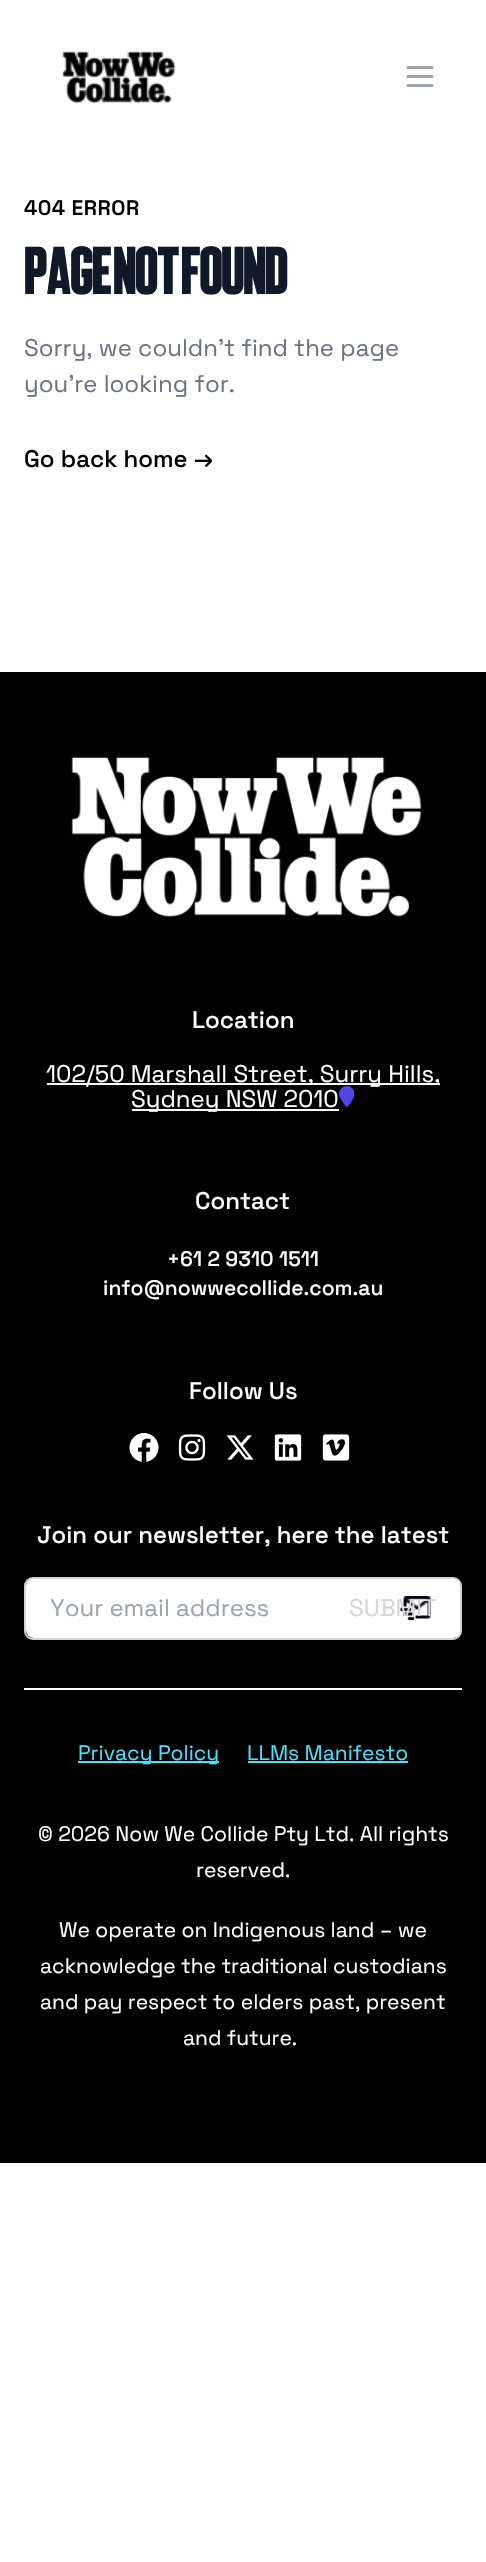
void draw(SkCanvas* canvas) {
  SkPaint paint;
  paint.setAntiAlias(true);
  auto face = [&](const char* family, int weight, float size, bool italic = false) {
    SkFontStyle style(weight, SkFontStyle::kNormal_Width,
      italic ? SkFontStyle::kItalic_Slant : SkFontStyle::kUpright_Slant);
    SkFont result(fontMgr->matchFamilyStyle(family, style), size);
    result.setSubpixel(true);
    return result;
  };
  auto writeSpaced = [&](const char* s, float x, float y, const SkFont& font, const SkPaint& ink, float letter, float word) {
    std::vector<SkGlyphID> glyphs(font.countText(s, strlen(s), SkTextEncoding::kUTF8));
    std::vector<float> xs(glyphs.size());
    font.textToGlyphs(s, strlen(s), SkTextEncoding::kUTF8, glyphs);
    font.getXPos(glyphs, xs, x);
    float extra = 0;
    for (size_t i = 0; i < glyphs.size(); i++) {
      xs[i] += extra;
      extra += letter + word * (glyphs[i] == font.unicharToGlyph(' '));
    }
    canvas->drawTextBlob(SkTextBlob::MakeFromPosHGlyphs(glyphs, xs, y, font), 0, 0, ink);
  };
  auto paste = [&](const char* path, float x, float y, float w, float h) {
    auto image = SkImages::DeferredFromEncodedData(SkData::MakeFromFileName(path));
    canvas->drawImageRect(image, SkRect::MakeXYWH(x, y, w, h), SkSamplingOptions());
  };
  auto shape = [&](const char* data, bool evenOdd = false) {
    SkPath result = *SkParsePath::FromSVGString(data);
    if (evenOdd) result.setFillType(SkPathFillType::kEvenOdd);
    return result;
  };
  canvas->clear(0xffffffff);
  paste("img/1.png", 62, 51, 114, 53);
  paint.setStroke(true);
  paint.setStrokeWidth(3);
  paint.setStrokeCap(SkPaint::kRound_Cap);
  paint.setStrokeJoin(SkPaint::kRound_Join);
  paint.setColor(0xff9ca3af);
  canvas->drawPath(shape("M408 67.5H432M408 76.5H432M408 85.5H432"), paint);
  paint.setStroke(false);
  paint.setColor(0xff000000);
  canvas->drawRect(SkRect::MakeXYWH(0, 672, 486, 1491), paint);
  paste("img/2.png", 71, 756, 351, 161);
  paint.setColor(0xffffffff);
  canvas->drawRect(SkRect::MakeXYWH(47, 1083, 393, 2), paint);
  canvas->drawRect(SkRect::MakeXYWH(132, 1109, 207, 2), paint);
  paste("img/4.png", 129, 1433, 30, 29);
  paste("img/5.png", 178, 1434, 28, 27);
  paste("img/6.png", 226, 1435, 28, 25);
  paste("img/7.png", 274, 1434, 28, 27);
  paste("img/8.png", 322, 1434, 28, 27);
  canvas->drawRoundRect(SkRect::MakeXYWH(26, 1578, 435, 60), 8, 8, paint);
  paste("img/9.png", 400, 1596, 31, 24);
  paint.setStroke(true);
  paint.setStrokeWidth(2);
  paint.setStrokeCap(SkPaint::kButt_Cap);
  paint.setStrokeJoin(SkPaint::kMiter_Join);
  paint.setColor(0xffd1d5db);
  canvas->drawRoundRect(SkRect::MakeXYWH(25, 1578, 436, 61), 8, 8, paint);
  paint.setStroke(false);
  {
    const struct { float x, y, w, h; SkColor color; } items[] = {
      {24, 1688, 438, 2, 0xffffffff},
      {78, 1761, 141, 2, 0xff4ae0f9},
      {248, 1761, 160, 2, 0xff4ae0f9},
    };
    for (auto [x, y, w, h, color] : items) {
      paint.setColor(color);
      canvas->drawRect(SkRect::MakeXYWH(x, y, w, h), paint);
    }
  }
  auto f0 = face("Space Grotesk", 600, 21);
  paint.setColor(0xff000000);
  writeSpaced("404 ERROR", 24, 215, f0, paint, 0.5f, 0);
  auto f1 = face("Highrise", 700, 67.5f);
  paint.setColor(0xff111827);
  writeSpaced("Page not found", 24, 294, f1, paint, -1.75f, 0);
  auto f2 = face("Space Grotesk", 400, 24);
  paint.setColor(0xff6b7280);
  canvas->drawString("Sorry, we couldn’t find the page", 24, 356, f2, paint);
  canvas->drawString("you’re looking for.", 24, 392, f2, paint);
  auto f3 = face("Space Grotesk", 500, 24);
  paint.setColor(0xff000000);
  canvas->drawString("Go back home →", 24, 467, f3, paint);
  paint.setColor(0xffffffff);
  canvas->drawString("Location", 192, 1028, f3, paint);
  canvas->drawString("102/50 Marshall Street, Surry Hills,", 46, 1082, f2, paint);
  canvas->drawString("Sydney NSW 2010", 131, 1107, f2, paint);
  paste("img/3.png", 339, 1086, 15, 21);
  canvas->drawString("Contact", 195, 1209, f3, paint);
  auto f4 = face("Space Grotesk", 500, 21);
  canvas->drawString("+61 2 9310 1511", 167, 1266, f4, paint);
  canvas->drawString("info@nowwecollide.com.au", 103, 1295, f4, paint);
  canvas->drawString("Follow Us", 189, 1399, f3, paint);
  canvas->drawString("Join our newsletter, here the latest", 37, 1543, f3, paint);
  paint.setColor(0xff9ca3af);
  canvas->drawString("Your email address", 50, 1616, f2, paint);
  paint.setColor(0xffd6d6d8);
  canvas->drawString("SUBMIT", 349, 1616, f2, paint);
  auto f5 = face("Space Grotesk", 400, 21);
  paint.setColor(0xff4ae0f9);
  canvas->drawString("Privacy Policy", 78, 1760, f5, paint);
  canvas->drawString("LLMs Manifesto", 247, 1760, f5, paint);
  paint.setColor(0xffffffff);
  {
    const struct { const char* s; float x, y; } items[] = {
      {"© 2026 Now We Collide Pty Ltd. All rights", 38, 1841},
      {"reserved.", 196, 1877},
      {"We operate on Indigenous land – we", 59, 1937},
      {"acknowledge the traditional custodians", 40, 1973},
      {"and pay respect to elders past, present", 40, 2009},
      {"and future.", 183, 2045},
    };
    for (auto [s, x, y] : items) {
      canvas->drawString(s, x, y, f5, paint);
    }
  }
}
